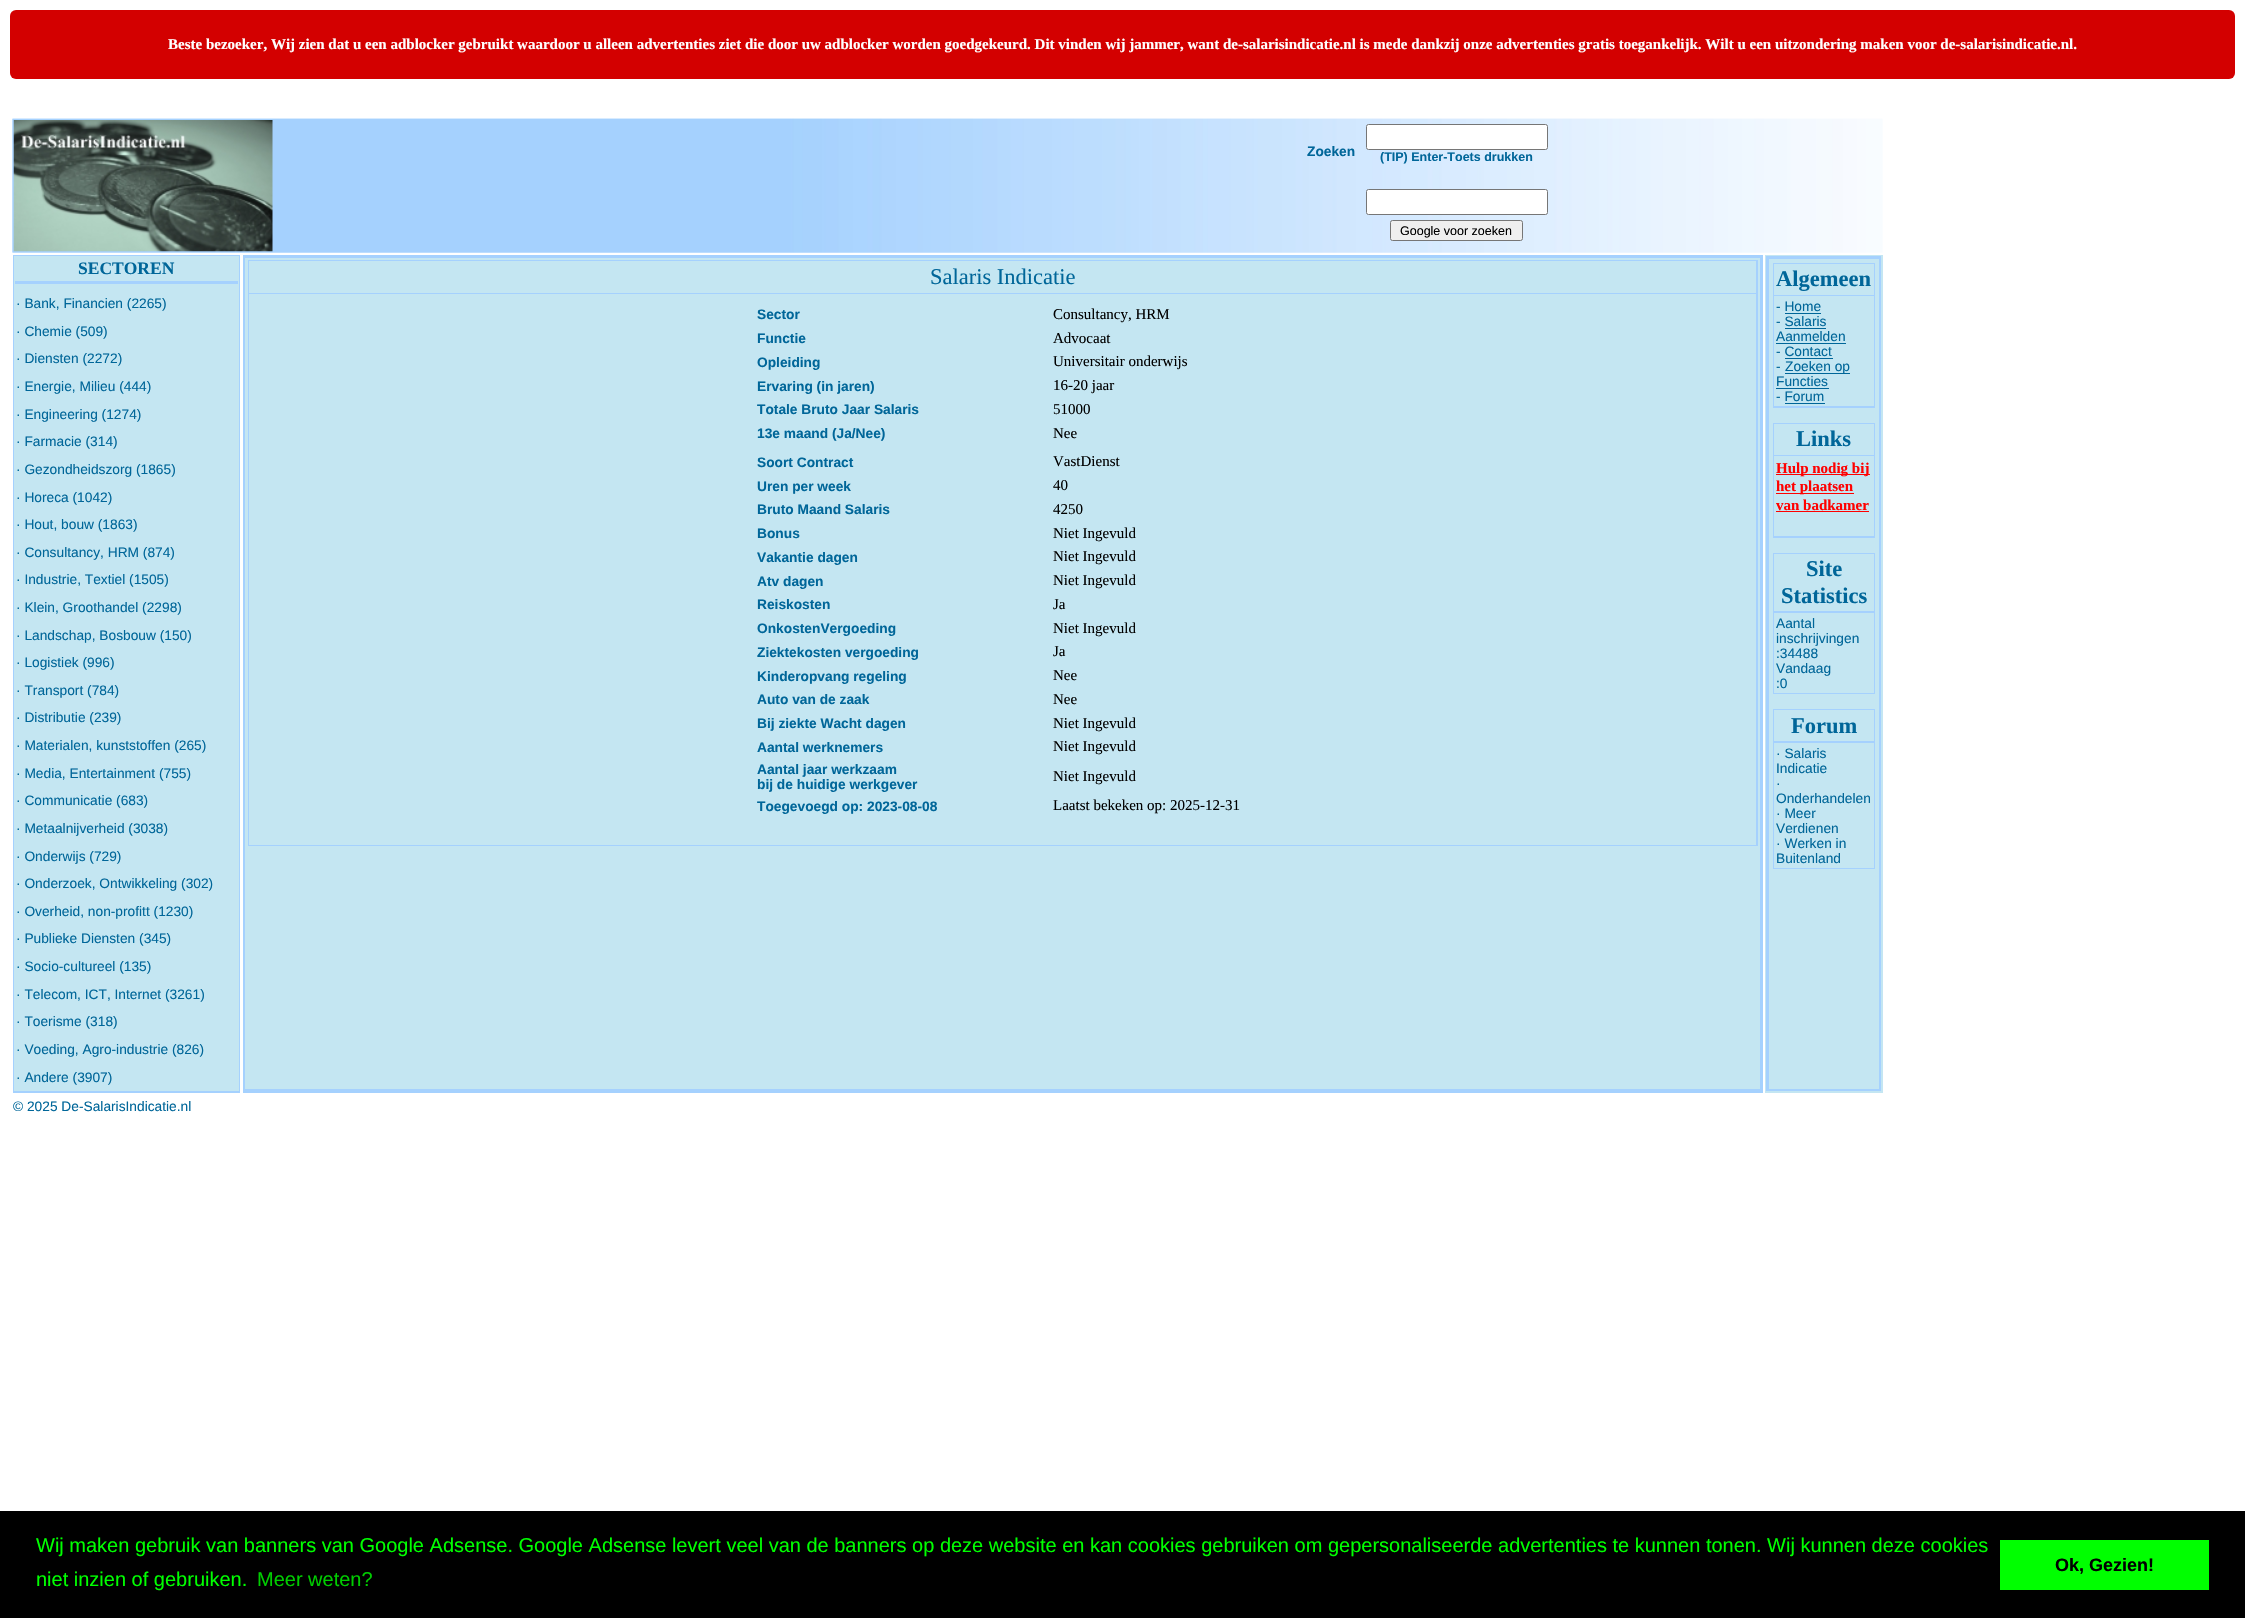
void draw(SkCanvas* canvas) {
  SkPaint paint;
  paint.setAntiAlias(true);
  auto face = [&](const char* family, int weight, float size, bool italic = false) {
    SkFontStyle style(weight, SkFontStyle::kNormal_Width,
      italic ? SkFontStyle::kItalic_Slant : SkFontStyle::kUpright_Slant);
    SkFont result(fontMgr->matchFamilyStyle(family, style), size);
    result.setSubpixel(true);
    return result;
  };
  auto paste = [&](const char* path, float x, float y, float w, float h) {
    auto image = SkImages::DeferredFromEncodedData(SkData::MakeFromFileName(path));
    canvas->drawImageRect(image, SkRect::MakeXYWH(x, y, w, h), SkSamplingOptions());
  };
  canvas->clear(0xffffffff);
  paint.setColor(0xffd30000);
  canvas->drawRoundRect(SkRect::MakeXYWH(10, 10, 2225, 69), 6, 6, paint);
  paste("img/1.png", 12, 118, 1871, 135);
  paste("img/2.png", 13, 120, 260, 132);
  paint.setColor(0xffffffff);
  canvas->drawRoundRect(SkRect::MakeXYWH(1366.5f, 124.5f, 181, 25), 2, 2, paint);
  paint.setStroke(true);
  paint.setStrokeWidth(1);
  paint.setColor(0xff767676);
  canvas->drawRoundRect(SkRect::MakeXYWH(1366.5f, 124.5f, 181, 25), 2, 2, paint);
  paint.setStroke(false);
  paint.setColor(0xffffffff);
  canvas->drawRoundRect(SkRect::MakeXYWH(1366.5f, 189.5f, 181, 25), 2, 2, paint);
  paint.setStroke(true);
  paint.setColor(0xff767676);
  canvas->drawRoundRect(SkRect::MakeXYWH(1366.5f, 189.5f, 181, 25), 2, 2, paint);
  paint.setStroke(false);
  paint.setColor(0xffefefef);
  canvas->drawRoundRect(SkRect::MakeXYWH(1390.5f, 220.5f, 132, 20), 2, 2, paint);
  paint.setStroke(true);
  paint.setColor(0xff767676);
  canvas->drawRoundRect(SkRect::MakeXYWH(1390.5f, 220.5f, 132, 20), 2, 2, paint);
  paint.setStroke(false);
  {
    const struct { float x, y, w, h; SkColor color; } items[] = {
      {13, 255, 227, 838, 0xffa5d1fe},
      {14, 256, 225, 835, 0xffc4e6f2},
      {15, 281, 223, 3, 0xffa5d1fe},
      {243, 255, 1520, 838, 0xffa5d1fe},
      {245, 258, 1515, 831, 0xffc4e6f2},
      {248, 260, 1510, 586, 0xffa5d1fe},
      {249, 261, 1507, 32, 0xffc4e6f2},
      {249, 294, 1507, 551, 0xffc4e6f2},
      {1765, 255, 118, 838, 0xffc4e6f2},
      {1766, 256, 115, 835, 0xffa5d1fe},
      {1769, 259, 110, 830, 0xffc4e6f2},
      {1773, 263, 102, 145, 0xffa5d1fe},
      {1774, 264, 100, 31, 0xffc4e6f2},
      {1774, 296, 100, 110, 0xffc4e6f2},
      {1785, 313, 36, 1, 0xff006699},
      {1785, 328, 41, 1, 0xff006699},
      {1776, 343, 70, 1, 0xff006699},
      {1785, 358, 48, 1, 0xff006699},
      {1785, 373, 65, 1, 0xff006699},
      {1776, 388, 53, 1, 0xff006699},
      {1785, 403, 40, 1, 0xff006699},
      {1773, 423, 102, 115, 0xffa5d1fe},
      {1774, 424, 100, 31, 0xffc4e6f2},
      {1774, 456, 100, 80, 0xffc4e6f2},
      {1776, 474, 94, 1, 0xffff0000},
      {1776, 493, 78, 1, 0xffff0000},
      {1776, 511, 93, 1, 0xffff0000},
      {1773, 553, 102, 141, 0xffa5d1fe},
      {1774, 554, 100, 57, 0xffc4e6f2},
      {1774, 613, 100, 80, 0xffc4e6f2},
      {1773, 709, 102, 160, 0xffa5d1fe},
      {1774, 710, 100, 31, 0xffc4e6f2},
      {1774, 743, 100, 125, 0xffc4e6f2},
      {0, 1511, 2245, 107, 0xff000000},
      {2000, 1540, 209, 50, 0xff00ff00},
    };
    for (auto [x, y, w, h, color] : items) {
      paint.setColor(color);
      canvas->drawRect(SkRect::MakeXYWH(x, y, w, h), paint);
    }
  }
  auto f0 = face("Liberation Serif", 700, 15);
  paint.setColor(0xffffffff);
  canvas->drawString("Beste bezoeker, Wij zien dat u een adblocker gebruikt waardoor u alleen advertenties ziet die door uw adblocker worden goedgekeurd. Dit vinden wij jammer, want de-salarisindicatie.nl is mede dankzij onze advertenties gratis toegankelijk. Wilt u een uitzondering maken voor de-salarisindicatie.nl.", 168, 49, f0, paint);
  auto f1 = face("Liberation Sans", 700, 13.75f);
  paint.setColor(0xff006699);
  canvas->drawString("Zoeken", 1307, 156, f1, paint);
  auto f2 = face("Liberation Sans", 700, 12.5f);
  canvas->drawString("(TIP) Enter-Toets drukken", 1380, 161, f2, paint);
  auto f3 = face("Liberation Sans", 400, 12.5f);
  paint.setColor(0xff000000);
  canvas->drawString("Google voor zoeken", 1400, 235, f3, paint);
  auto f4 = face("Liberation Serif", 700, 17.5f);
  paint.setColor(0xff006699);
  canvas->drawString("SECTOREN", 78, 274, f4, paint);
  auto f5 = face("Liberation Sans", 400, 13.75f);
  {
    const struct { const char* s; float x, y; } items[] = {
      {"· Bank, Financien (2265)", 16, 308},
      {"· Chemie (509)", 16, 336},
      {"· Diensten (2272)", 16, 363},
      {"· Energie, Milieu (444)", 16, 391},
      {"· Engineering (1274)", 16, 419},
      {"· Farmacie (314)", 16, 446},
      {"· Gezondheidszorg (1865)", 16, 474},
      {"· Horeca (1042)", 16, 502},
      {"· Hout, bouw (1863)", 16, 529},
      {"· Consultancy, HRM (874)", 16, 557},
      {"· Industrie, Textiel (1505)", 16, 584},
      {"· Klein, Groothandel (2298)", 16, 612},
      {"· Landschap, Bosbouw (150)", 16, 640},
      {"· Logistiek (996)", 16, 667},
      {"· Transport (784)", 16, 695},
      {"· Distributie (239)", 16, 722},
      {"· Materialen, kunststoffen (265)", 16, 750},
      {"· Media, Entertainment (755)", 16, 778},
      {"· Communicatie (683)", 16, 805},
      {"· Metaalnijverheid (3038)", 16, 833},
      {"· Onderwijs (729)", 16, 861},
      {"· Onderzoek, Ontwikkeling (302)", 16, 888},
      {"· Overheid, non-profitt (1230)", 16, 916},
      {"· Publieke Diensten (345)", 16, 943},
      {"· Socio-cultureel (135)", 16, 971},
      {"· Telecom, ICT, Internet (3261)", 16, 999},
      {"· Toerisme (318)", 16, 1026},
      {"· Voeding, Agro-industrie (826)", 16, 1054},
      {"· Andere (3907)", 16, 1082},
    };
    for (auto [s, x, y] : items) {
      canvas->drawString(s, x, y, f5, paint);
    }
  }
  auto f6 = face("Liberation Serif", 400, 22.5f);
  canvas->drawString("Salaris Indicatie", 930, 284, f6, paint);
  canvas->drawString("Sector", 757, 319, f1, paint);
  auto f7 = face("Liberation Serif", 400, 15);
  paint.setColor(0xff000000);
  canvas->drawString("Consultancy, HRM", 1053, 319, f7, paint);
  paint.setColor(0xff006699);
  canvas->drawString("Functie", 757, 343, f1, paint);
  paint.setColor(0xff000000);
  canvas->drawString("Advocaat", 1053, 343, f7, paint);
  paint.setColor(0xff006699);
  canvas->drawString("Opleiding", 757, 367, f1, paint);
  paint.setColor(0xff000000);
  canvas->drawString("Universitair onderwijs", 1053, 366, f7, paint);
  paint.setColor(0xff006699);
  canvas->drawString("Ervaring (in jaren)", 757, 391, f1, paint);
  paint.setColor(0xff000000);
  canvas->drawString("16-20 jaar", 1053, 390, f7, paint);
  paint.setColor(0xff006699);
  canvas->drawString("Totale Bruto Jaar Salaris", 757, 414, f1, paint);
  paint.setColor(0xff000000);
  canvas->drawString("51000", 1053, 414, f7, paint);
  paint.setColor(0xff006699);
  canvas->drawString("13e maand (Ja/Nee)", 757, 438, f1, paint);
  paint.setColor(0xff000000);
  canvas->drawString("Nee", 1053, 438, f7, paint);
  paint.setColor(0xff006699);
  canvas->drawString("Soort Contract", 757, 467, f1, paint);
  paint.setColor(0xff000000);
  canvas->drawString("VastDienst", 1053, 466, f7, paint);
  paint.setColor(0xff006699);
  canvas->drawString("Uren per week", 757, 491, f1, paint);
  paint.setColor(0xff000000);
  canvas->drawString("40", 1053, 490, f7, paint);
  paint.setColor(0xff006699);
  canvas->drawString("Bruto Maand Salaris", 757, 514, f1, paint);
  paint.setColor(0xff000000);
  canvas->drawString("4250", 1053, 514, f7, paint);
  paint.setColor(0xff006699);
  canvas->drawString("Bonus", 757, 538, f1, paint);
  paint.setColor(0xff000000);
  canvas->drawString("Niet Ingevuld", 1053, 538, f7, paint);
  paint.setColor(0xff006699);
  canvas->drawString("Vakantie dagen", 757, 562, f1, paint);
  paint.setColor(0xff000000);
  canvas->drawString("Niet Ingevuld", 1053, 561, f7, paint);
  paint.setColor(0xff006699);
  canvas->drawString("Atv dagen", 757, 586, f1, paint);
  paint.setColor(0xff000000);
  canvas->drawString("Niet Ingevuld", 1053, 585, f7, paint);
  paint.setColor(0xff006699);
  canvas->drawString("Reiskosten", 757, 609, f1, paint);
  paint.setColor(0xff000000);
  canvas->drawString("Ja", 1053, 609, f7, paint);
  paint.setColor(0xff006699);
  canvas->drawString("OnkostenVergoeding", 757, 633, f1, paint);
  paint.setColor(0xff000000);
  canvas->drawString("Niet Ingevuld", 1053, 633, f7, paint);
  paint.setColor(0xff006699);
  canvas->drawString("Ziektekosten vergoeding", 757, 657, f1, paint);
  paint.setColor(0xff000000);
  canvas->drawString("Ja", 1053, 656, f7, paint);
  paint.setColor(0xff006699);
  canvas->drawString("Kinderopvang regeling", 757, 681, f1, paint);
  paint.setColor(0xff000000);
  canvas->drawString("Nee", 1053, 680, f7, paint);
  paint.setColor(0xff006699);
  canvas->drawString("Auto van de zaak", 757, 704, f1, paint);
  paint.setColor(0xff000000);
  canvas->drawString("Nee", 1053, 704, f7, paint);
  paint.setColor(0xff006699);
  canvas->drawString("Bij ziekte Wacht dagen", 757, 728, f1, paint);
  paint.setColor(0xff000000);
  canvas->drawString("Niet Ingevuld", 1053, 728, f7, paint);
  paint.setColor(0xff006699);
  canvas->drawString("Aantal werknemers", 757, 752, f1, paint);
  paint.setColor(0xff000000);
  canvas->drawString("Niet Ingevuld", 1053, 751, f7, paint);
  paint.setColor(0xff006699);
  canvas->drawString("Aantal jaar werkzaam", 757, 774, f1, paint);
  canvas->drawString("bij de huidige werkgever", 757, 789, f1, paint);
  paint.setColor(0xff000000);
  canvas->drawString("Niet Ingevuld", 1053, 781, f7, paint);
  paint.setColor(0xff006699);
  canvas->drawString("Toegevoegd op: 2023-08-08", 757, 811, f1, paint);
  paint.setColor(0xff000000);
  canvas->drawString("Laatst bekeken op: 2025-12-31", 1053, 810, f7, paint);
  auto f8 = face("Liberation Serif", 700, 22.5f);
  paint.setColor(0xff006699);
  canvas->drawString("Algemeen", 1776, 286, f8, paint);
  {
    const struct { const char* s; float x, y; } items[] = {
      {"- Home", 1776, 311},
      {"- Salaris", 1776, 326},
      {"Aanmelden", 1776, 341},
      {"- Contact", 1776, 356},
      {"-", 1776, 371},
      {"Zoeken op", 1785, 371},
      {"Functies", 1776, 386},
      {"- Forum", 1776, 401},
    };
    for (auto [s, x, y] : items) {
      canvas->drawString(s, x, y, f5, paint);
    }
  }
  canvas->drawString("Links", 1796, 446, f8, paint);
  paint.setColor(0xffff0000);
  {
    const struct { const char* s; float x, y; } items[] = {
      {"Hulp nodig bij", 1776, 473},
      {"het plaatsen", 1776, 491},
      {"van badkamer", 1776, 510},
    };
    for (auto [s, x, y] : items) {
      canvas->drawString(s, x, y, f0, paint);
    }
  }
  paint.setColor(0xff006699);
  canvas->drawString("Site", 1806, 576, f8, paint);
  canvas->drawString("Statistics", 1781, 603, f8, paint);
  {
    const struct { const char* s; float x, y; } items[] = {
      {"Aantal", 1776, 628},
      {"inschrijvingen", 1776, 643},
      {":34488", 1776, 658},
      {"Vandaag", 1776, 673},
      {":0", 1776, 688},
    };
    for (auto [s, x, y] : items) {
      canvas->drawString(s, x, y, f5, paint);
    }
  }
  canvas->drawString("Forum", 1791, 733, f8, paint);
  {
    const struct { const char* s; float x, y; } items[] = {
      {"· Salaris", 1776, 758},
      {"Indicatie", 1776, 773},
      {"·", 1776, 788},
      {"Onderhandelen", 1776, 803},
      {"· Meer", 1776, 818},
      {"Verdienen", 1776, 833},
      {"· Werken in", 1776, 848},
      {"Buitenland", 1776, 863},
      {"© 2025 De-SalarisIndicatie.nl", 13, 1111},
    };
    for (auto [s, x, y] : items) {
      canvas->drawString(s, x, y, f5, paint);
    }
  }
  auto f9 = face("Liberation Sans", 400, 20);
  paint.setColor(0xff00ff00);
  canvas->drawString("Wij maken gebruik van banners van Google Adsense. Google Adsense levert veel van de banners op deze website en kan cookies gebruiken om gepersonaliseerde advertenties te kunnen tonen. Wij kunnen deze cookies", 36, 1552, f9, paint);
  canvas->drawString("niet inzien of gebruiken.", 36, 1586, f9, paint);
  paint.setColor(0xff00cc00);
  canvas->drawString("Meer weten?", 257, 1586, f9, paint);
  auto f10 = face("Liberation Sans", 700, 18);
  paint.setColor(0xff000000);
  canvas->drawString("Ok, Gezien!", 2055, 1571, f10, paint);
}
